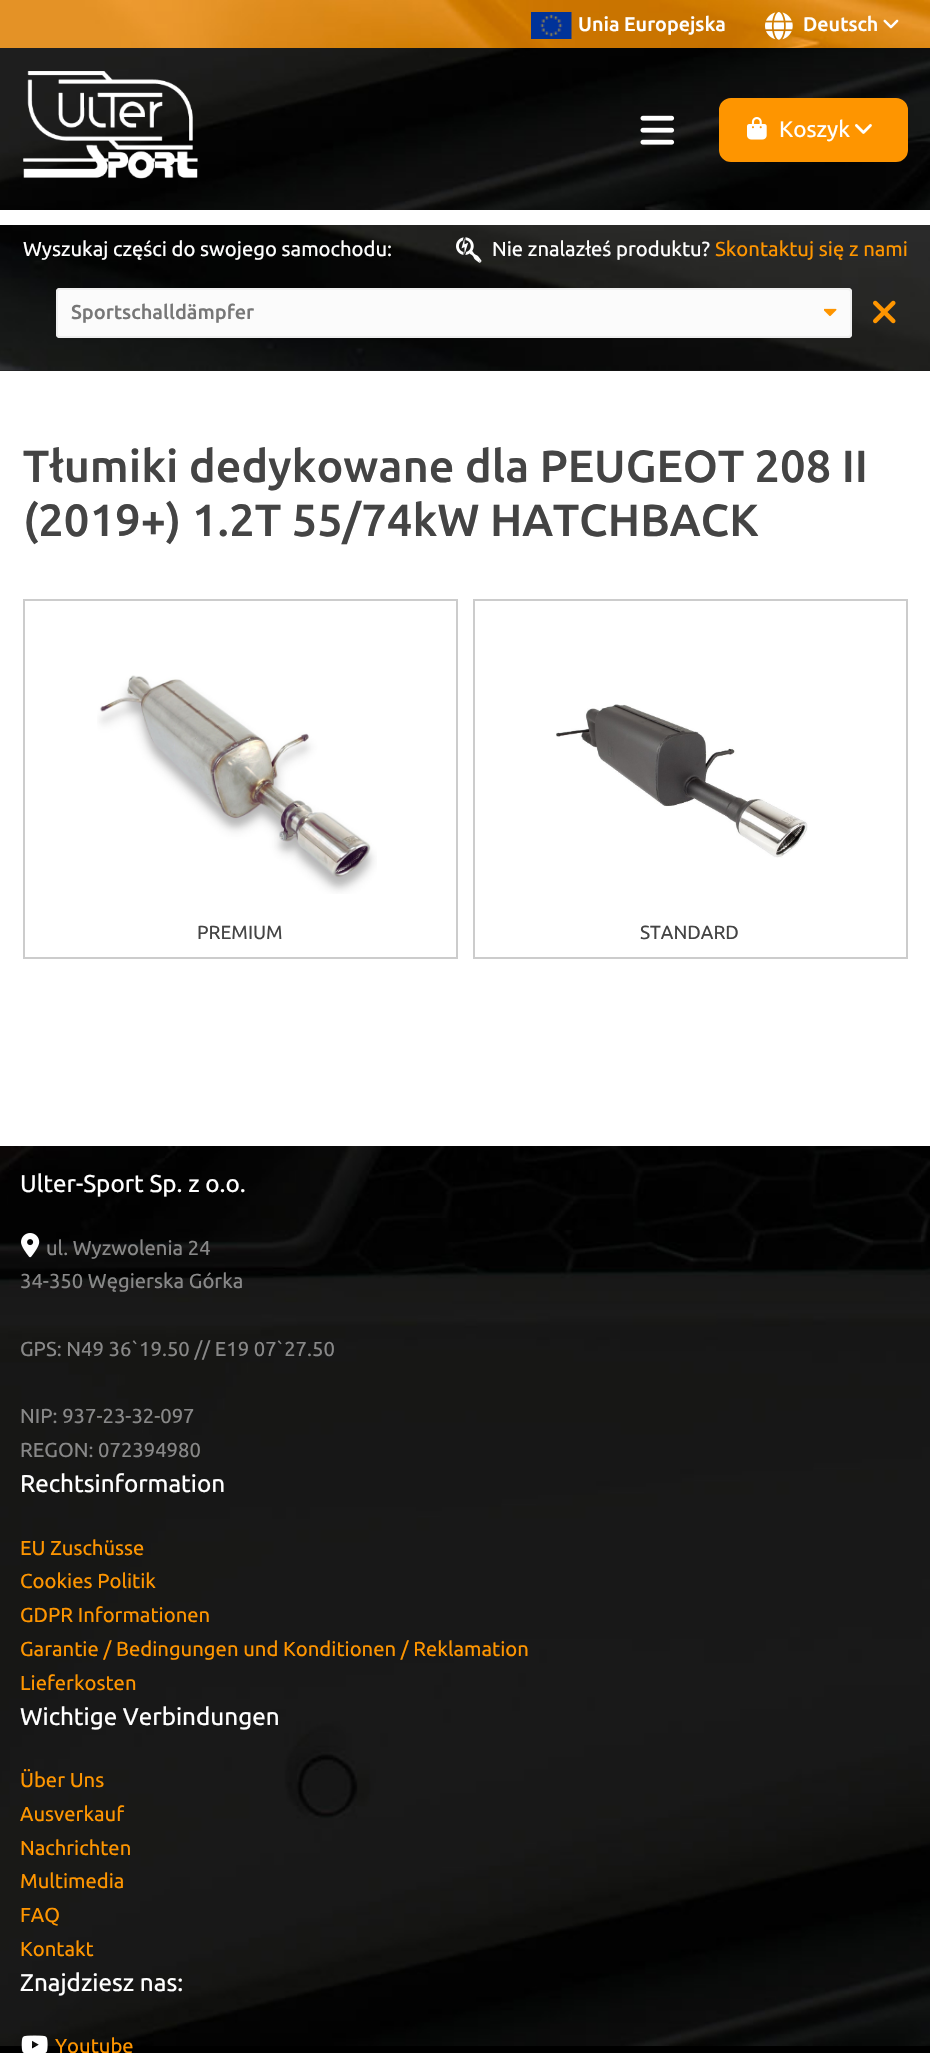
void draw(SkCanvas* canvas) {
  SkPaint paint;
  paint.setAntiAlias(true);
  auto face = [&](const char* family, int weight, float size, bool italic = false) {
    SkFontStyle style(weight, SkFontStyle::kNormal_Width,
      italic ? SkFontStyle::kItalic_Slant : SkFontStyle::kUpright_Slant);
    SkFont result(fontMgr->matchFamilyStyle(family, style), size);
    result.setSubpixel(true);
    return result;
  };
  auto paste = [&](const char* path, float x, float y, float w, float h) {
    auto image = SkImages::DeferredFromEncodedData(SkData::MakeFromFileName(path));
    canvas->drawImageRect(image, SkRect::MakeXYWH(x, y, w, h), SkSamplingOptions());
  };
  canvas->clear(0xffffffff);
  paste("img/1.png", 0, 0, 930, 48);
  paste("img/2.png", 531, 12, 41, 27);
  paste("img/3.png", 765, 12, 28, 28);
  paste("img/4.png", 883, 19, 16, 10);
  paste("img/5.png", 0, 48, 930, 162);
  paste("img/6.png", 23, 71, 175, 108);
  paste("img/7.png", 640, 115, 35, 30);
  paint.setColor(0xfffe9500);
  canvas->drawRoundRect(SkRect::MakeXYWH(720, 99, 187, 62), 11, 11, paint);
  paint.setStroke(true);
  paint.setStrokeWidth(2);
  canvas->drawRoundRect(SkRect::MakeXYWH(720, 99, 187, 62), 11, 11, paint);
  paste("img/8.png", 747, 117, 20, 23);
  paste("img/9.png", 855, 124, 17, 10);
  paint.setStroke(false);
  paint.setColor(0xff1b1b1b);
  canvas->drawRect(SkRect::MakeXYWH(0, 370, 930, 1), paint);
  paste("img/10.png", 0, 225, 930, 146);
  paste("img/11.png", 456, 237, 26, 26);
  paint.setColor(0xfffbfbfb);
  canvas->drawRoundRect(SkRect::MakeXYWH(56, 288, 796, 50), 4, 4, paint);
  paste("img/12.png", 824, 308, 13, 9);
  paint.setStroke(true);
  paint.setColor(0xffefefef);
  canvas->drawRoundRect(SkRect::MakeXYWH(57, 289, 794, 48), 3, 3, paint);
  paste("img/13.png", 873, 300, 23, 24);
  paint.setColor(0xffcccccc);
  canvas->drawRect(SkRect::MakeXYWH(24, 600, 433, 358), paint);
  paste("img/14.png", 97, 675, 280, 219);
  canvas->drawRect(SkRect::MakeXYWH(474, 600, 433, 358), paint);
  paste("img/15.png", 556, 704, 252, 154);
  paint.setStroke(false);
  paint.setColor(0xff000000);
  canvas->drawRect(SkRect::MakeXYWH(0, 2046, 930, 7), paint);
  paste("img/16.png", 0, 1146, 930, 900);
  paste("img/17.png", 21, 1233, 19, 25);
  paste("img/18.png", 21, 2035, 27, 18);
  auto f0 = face("Ubuntu", 500, 19.75f);
  paint.setColor(0xffffffff);
  canvas->drawString("Unia Europejska", 578, 31, f0, paint);
  canvas->drawString("Deutsch", 803, 31, f0, paint);
  auto f1 = face("Ubuntu", 400, 22.5f);
  canvas->drawString("Koszyk", 779, 137, f1, paint);
  auto f2 = face("Ubuntu", 400, 20.25f);
  canvas->drawString("Wyszukaj części do swojego samochodu:", 23, 256, f2, paint);
  canvas->drawString("Nie znalazłeś produktu?", 492, 256, f2, paint);
  paint.setColor(0xfffe9500);
  canvas->drawString("Skontaktuj się z nami", 715, 256, f2, paint);
  auto f3 = face("Ubuntu", 500, 20);
  paint.setColor(0xff777777);
  canvas->drawString("Sportschalldämpfer", 71, 319, f3, paint);
  auto f4 = face("Ubuntu", 500, 45);
  paint.setColor(0xff444444);
  canvas->drawString("Tłumiki dedykowane dla PEUGEOT 208 II", 23, 482, f4, paint);
  canvas->drawString("(2019+) 1.2T 55/74kW HATCHBACK", 23, 536, f4, paint);
  auto f5 = face("Ubuntu", 400, 19);
  canvas->drawString("PREMIUM", 197, 939, f5, paint);
  canvas->drawString("STANDARD", 640, 939, f5, paint);
  auto f6 = face("Ubuntu", 400, 24.25f);
  paint.setColor(0xffffffff);
  canvas->drawString("Ulter-Sport Sp. z o.o.", 20, 1192, f6, paint);
  paint.setColor(0xff888888);
  {
    const struct { const char* s; float x, y; } items[] = {
      {"ul. Wyzwolenia 24", 46, 1255},
      {"34-350 Węgierska Górka", 20, 1288},
      {"GPS: N49 36`19.50 // E19 07`27.50", 20, 1356},
      {"NIP: 937-23-32-097", 20, 1423},
      {"REGON: 072394980", 20, 1457},
    };
    for (auto [s, x, y] : items) {
      canvas->drawString(s, x, y, f2, paint);
    }
  }
  paint.setColor(0xffffffff);
  canvas->drawString("Rechtsinformation", 20, 1492, f6, paint);
  paint.setColor(0xfffe9500);
  {
    const struct { const char* s; float x, y; } items[] = {
      {"EU Zuschüsse", 20, 1555},
      {"Cookies Politik", 20, 1588},
      {"GDPR Informationen", 20, 1622},
      {"Garantie / Bedingungen und Konditionen / Reklamation", 20, 1656},
      {"Lieferkosten", 20, 1690},
    };
    for (auto [s, x, y] : items) {
      canvas->drawString(s, x, y, f2, paint);
    }
  }
  paint.setColor(0xffffffff);
  canvas->drawString("Wichtige Verbindungen", 20, 1725, f6, paint);
  paint.setColor(0xfffe9500);
  {
    const struct { const char* s; float x, y; } items[] = {
      {"Über Uns", 20, 1787},
      {"Ausverkauf", 20, 1821},
      {"Nachrichten", 20, 1855},
      {"Multimedia", 20, 1888},
      {"FAQ", 20, 1922},
      {"Kontakt", 20, 1956},
    };
    for (auto [s, x, y] : items) {
      canvas->drawString(s, x, y, f2, paint);
    }
  }
  paint.setColor(0xffffffff);
  canvas->drawString("Znajdziesz nas:", 20, 1991, f6, paint);
  paint.setColor(0xfffe9500);
  canvas->drawString("Youtube", 55, 2053, f2, paint);
}
